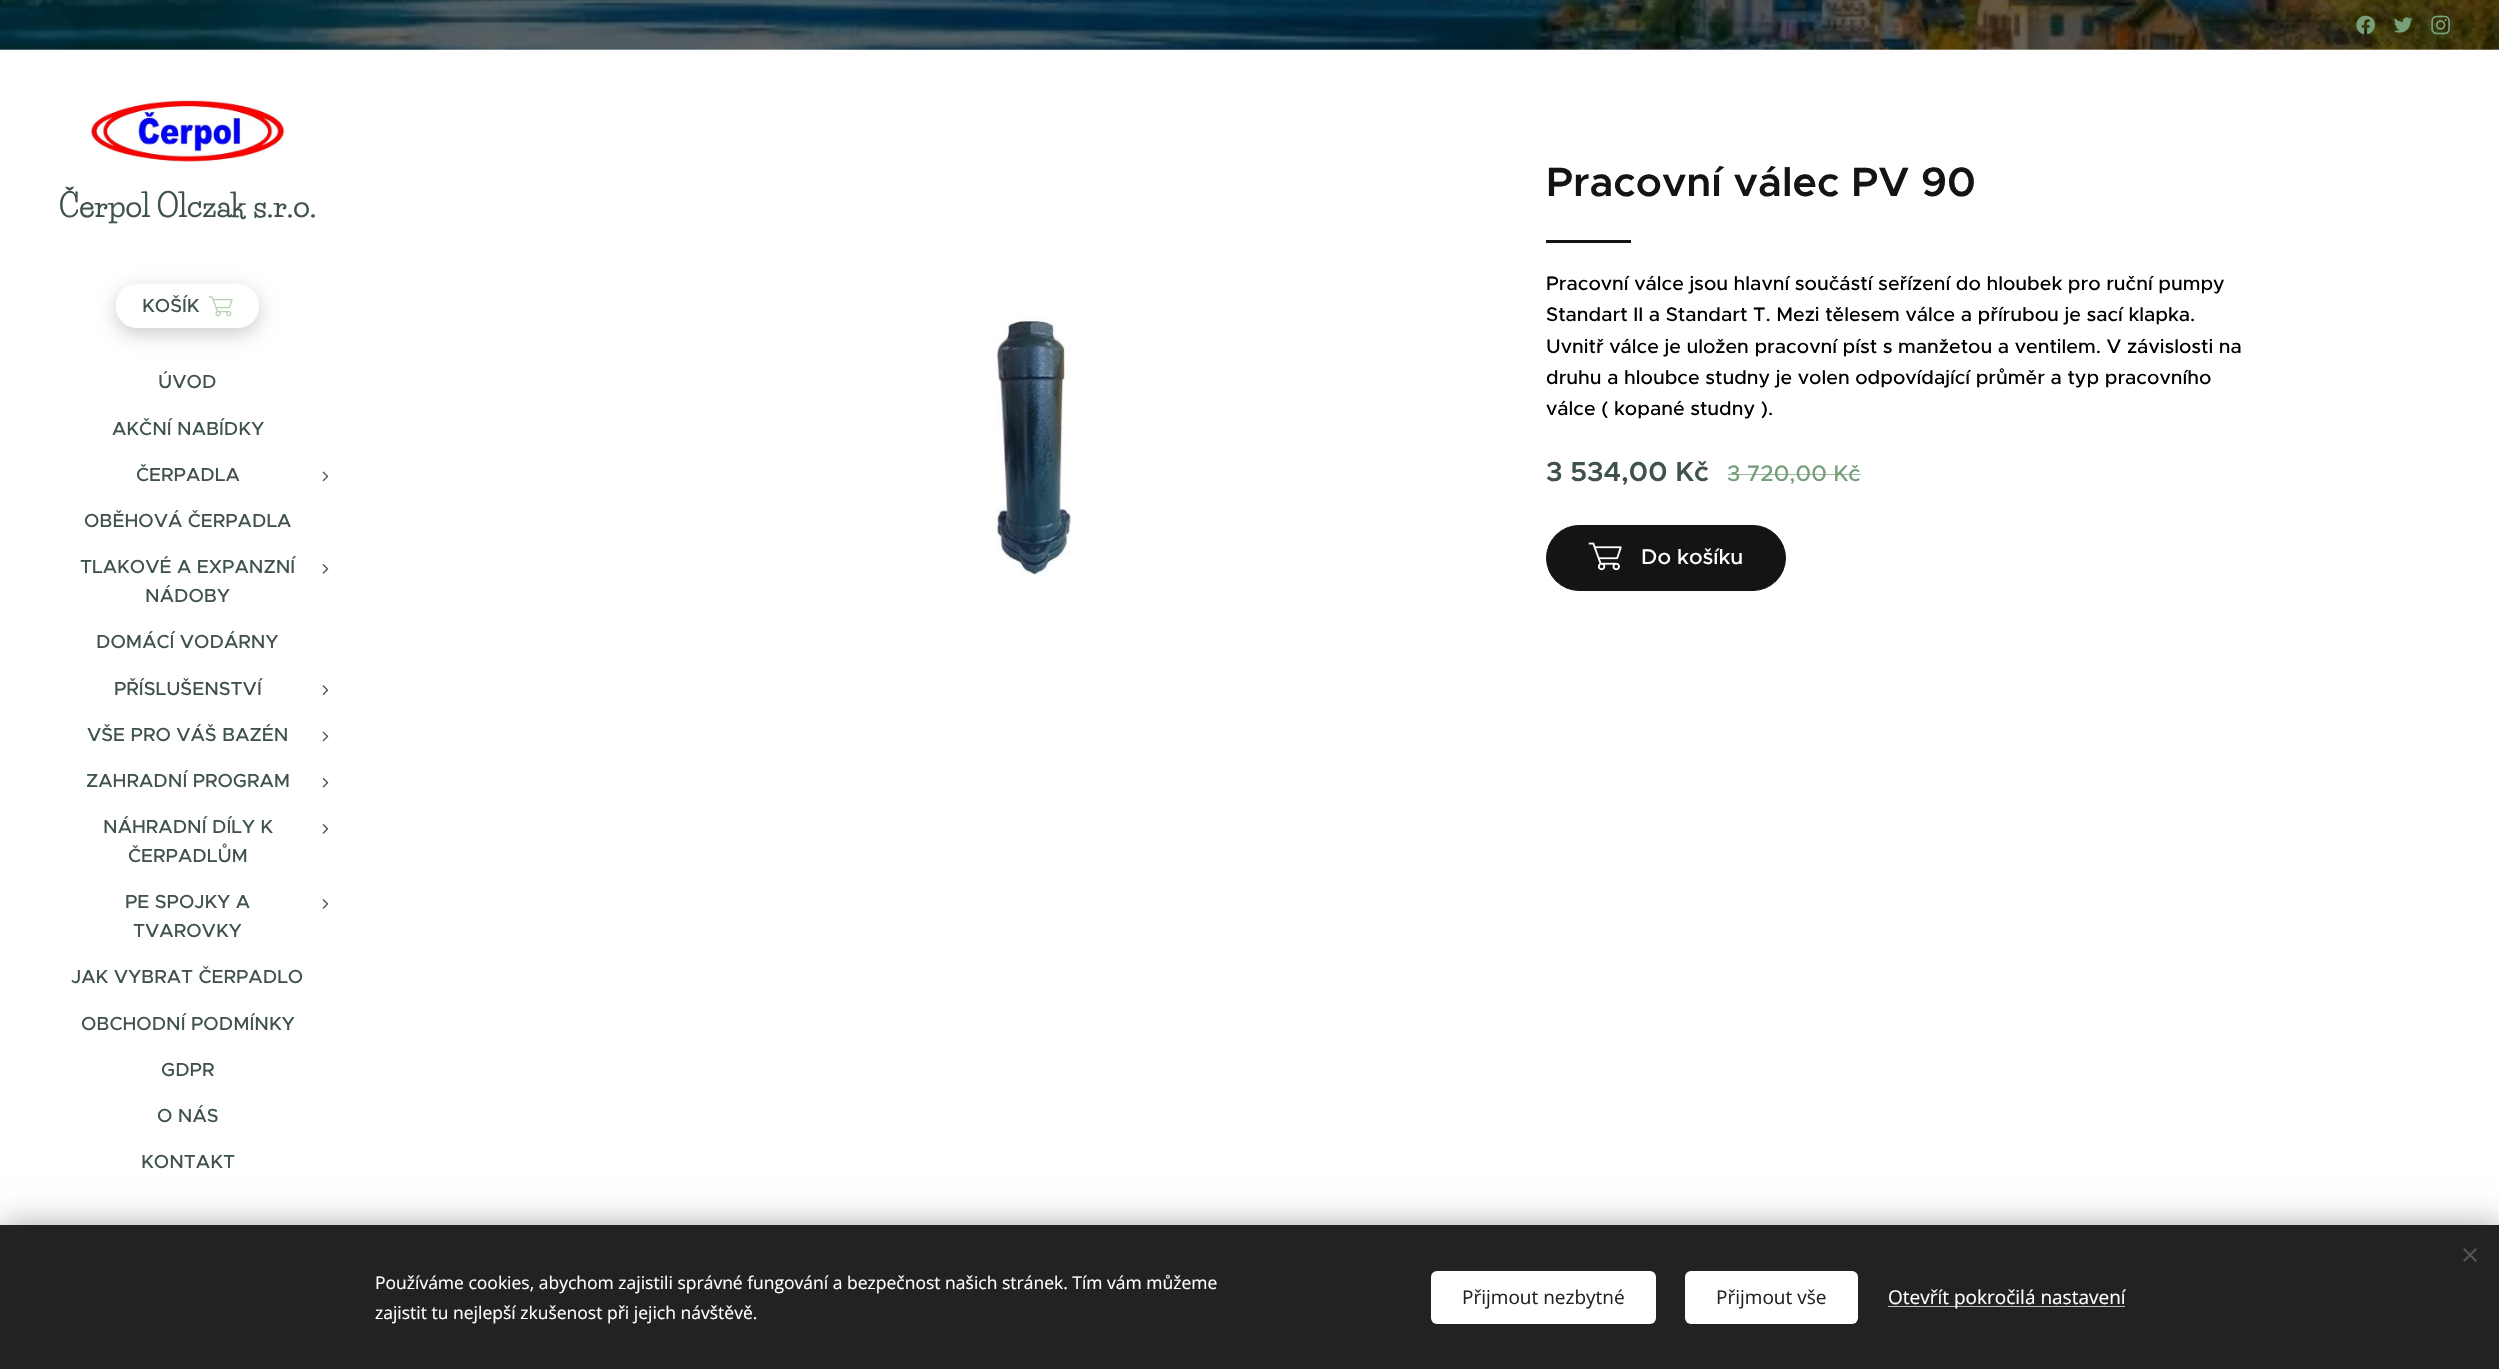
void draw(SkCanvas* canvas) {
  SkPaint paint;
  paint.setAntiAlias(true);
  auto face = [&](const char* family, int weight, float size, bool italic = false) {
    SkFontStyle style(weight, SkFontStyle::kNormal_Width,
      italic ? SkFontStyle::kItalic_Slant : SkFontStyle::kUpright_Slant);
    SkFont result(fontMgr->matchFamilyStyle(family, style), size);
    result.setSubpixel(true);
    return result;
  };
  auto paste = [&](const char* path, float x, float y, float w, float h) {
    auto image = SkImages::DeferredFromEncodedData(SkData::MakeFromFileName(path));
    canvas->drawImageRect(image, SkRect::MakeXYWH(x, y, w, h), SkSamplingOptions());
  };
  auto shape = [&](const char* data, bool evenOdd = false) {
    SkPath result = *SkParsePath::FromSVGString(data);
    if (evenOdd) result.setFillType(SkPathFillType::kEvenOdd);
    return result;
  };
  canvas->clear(0xffffffff);
  paste("img/1.png", 0, 0, 2499, 50);
  paste("img/2.png", 2356, 15, 19, 20);
  paste("img/3.png", 2394, 17, 19, 16);
  paste("img/4.png", 2431, 15, 19, 20);
  paint.setColor(0x4dffffff);
  canvas->drawRect(SkRect::MakeXYWH(0, 49, 2499, 1), paint);
  paste("img/5.png", 91, 100, 194, 62);
  canvas->save();
  canvas->clipPath(shape("M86 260H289V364H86ZM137 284H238C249.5 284 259 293.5 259 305V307C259 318.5 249.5 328 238 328H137C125.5 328 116 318.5 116 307V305C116 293.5 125.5 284 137 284Z", true), true);
  paint.setColor(0x33000000);
  paint.setMaskFilter(SkMaskFilter::MakeBlur(kNormal_SkBlurStyle, 9.5f));
  canvas->drawRoundRect(SkRect::MakeXYWH(116, 290, 143, 44), 21, 21, paint);
  paint.setMaskFilter(nullptr);
  canvas->restore();
  paint.setColor(0x33ffffff);
  canvas->drawRoundRect(SkRect::MakeXYWH(116, 284, 143, 44), 21, 21, paint);
  paste("img/6.png", 208, 296, 25, 21);
  paste("img/7.png", 322, 471, 7, 11);
  paste("img/8.png", 322, 564, 7, 10);
  paste("img/9.png", 322, 685, 7, 10);
  paste("img/7.png", 322, 731, 7, 11);
  paste("img/10.png", 322, 777, 7, 11);
  paste("img/8.png", 322, 824, 7, 10);
  paste("img/8.png", 322, 899, 7, 10);
  paint.setColor(0xff141414);
  canvas->drawRect(SkRect::MakeXYWH(1546, 240, 85, 3), paint);
  paste("img/11.png", 995, 315, 82, 263);
  canvas->drawRoundRect(SkRect::MakeXYWH(1546.5f, 525.5f, 239, 65), 32.5f, 32.5f, paint);
  paint.setStroke(true);
  paint.setStrokeWidth(1);
  canvas->drawRoundRect(SkRect::MakeXYWH(1546.5f, 525.5f, 239, 65), 32.5f, 32.5f, paint);
  paste("img/12.png", 1588, 542, 34, 29);
  paint.setStroke(false);
  paint.setColor(0x54000000);
  paint.setMaskFilter(SkMaskFilter::MakeBlur(kNormal_SkBlurStyle, 15.5f));
  canvas->drawRect(SkRect::MakeXYWH(0, 1225, 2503, 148), paint);
  paint.setMaskFilter(nullptr);
  paint.setColor(0xff222222);
  canvas->drawRect(SkRect::MakeXYWH(0, 1225, 2499, 144), paint);
  paint.setColor(0xff555555);
  canvas->drawPath(shape("M2463 1260.5L2475.5 1248L2477 1249.5L2464.5 1262Z"), paint);
  canvas->drawPath(shape("M2464.5 1248L2477 1260.5L2475.5 1262L2463 1249.5Z"), paint);
  paint.setColor(0xffffffff);
  canvas->drawRoundRect(SkRect::MakeXYWH(1431, 1271, 225, 53), 6, 6, paint);
  canvas->drawRoundRect(SkRect::MakeXYWH(1685, 1271, 173, 53), 6, 6, paint);
  paint.setColor(0xffbdbdbd);
  canvas->drawRect(SkRect::MakeXYWH(1888, 1306, 237, 1), paint);
  auto f0 = face("Life Savers", 700, 31.25f);
  paint.setColor(0xff3f524c);
  canvas->drawString("Čerpol Olczak s.r.o.", 59, 217, f0, paint);
  auto f1 = face("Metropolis", 500, 19);
  {
    const struct { const char* s; float x, y; } items[] = {
      {"KOŠÍK", 142, 312},
      {"ÚVOD", 158, 388},
      {"AKČNÍ NABÍDKY", 112, 435},
      {"ČERPADLA", 136, 481},
      {"OBĚHOVÁ ČERPADLA", 84, 527},
      {"TLAKOVÉ A EXPANZNÍ", 80, 573},
      {"NÁDOBY", 145, 602},
      {"DOMÁCÍ VODÁRNY", 96, 648},
      {"PŘÍSLUŠENSTVÍ", 114, 695},
      {"VŠE PRO VÁŠ BAZÉN", 87, 741},
      {"ZAHRADNÍ PROGRAM", 86, 787},
      {"NÁHRADNÍ DÍLY K", 103, 833},
      {"ČERPADLŮM", 128, 862},
      {"PE SPOJKY A", 125, 908},
      {"TVAROVKY", 133, 937},
      {"JAK VYBRAT ČERPADLO", 71, 983},
      {"OBCHODNÍ PODMÍNKY", 81, 1030},
      {"GDPR", 161, 1076},
      {"O NÁS", 157, 1122},
      {"KONTAKT", 141, 1168},
    };
    for (auto [s, x, y] : items) {
      canvas->drawString(s, x, y, f1, paint);
    }
  }
  auto f2 = face("Metropolis", 600, 41.25f);
  paint.setColor(0xff141414);
  canvas->drawString("Pracovní válec PV 90", 1546, 196, f2, paint);
  auto f3 = face("Metropolis", 500, 19.6f);
  paint.setColor(0xff000000);
  {
    const struct { const char* s; float x, y; } items[] = {
      {"Pracovní válce jsou hlavní součástí seřízení do hloubek pro ruční pumpy", 1546, 290},
      {"Standart II a Standart T. Mezi tělesem válce a přírubou je sací klapka.", 1546, 321},
      {"Uvnitř válce je uložen pracovní píst s manžetou a ventilem. V závislosti na", 1546, 353},
      {"druhu a hloubce studny je volen odpovídající průměr a typ pracovního", 1546, 384},
      {"válce ( kopané studny ).", 1546, 415},
    };
    for (auto [s, x, y] : items) {
      canvas->drawString(s, x, y, f3, paint);
    }
  }
  auto f4 = face("Metropolis", 600, 27.5f);
  paint.setColor(0xff3f524c);
  canvas->drawString("3 534,00 Kč", 1546, 481, f4, paint);
  auto f5 = face("Metropolis", 500, 22.5f);
  paint.setColor(0xff769f7a);
  canvas->drawString("3 720,00 Kč", 1727, 481, f5, paint);
  paint.setColor(0xbf769f7a);
  canvas->drawRect(SkRect::MakeXYWH(1728, 474, 133, 1), paint);
  auto f6 = face("Metropolis", 500, 21.5f);
  paint.setColor(0xffffffff);
  canvas->drawString("Do košíku", 1641, 564, f6, paint);
  auto f7 = face("Open Sans", 400, 17.5f);
  canvas->drawString("Používáme cookies, abychom zajistili správné fungování a bezpečnost našich stránek. Tím vám můžeme", 375, 1289, f7, paint);
  canvas->drawString("zajistit tu nejlepší zkušenost při jejich návštěvě.", 375, 1319, f7, paint);
  auto f8 = face("Open Sans", 400, 19);
  paint.setColor(0xff222222);
  canvas->drawString("Přijmout nezbytné", 1462, 1304, f8, paint);
  canvas->drawString("Přijmout vše", 1716, 1304, f8, paint);
  paint.setColor(0xffffffff);
  canvas->drawString("Otevřít pokročilá nastavení", 1888, 1304, f8, paint);
}
